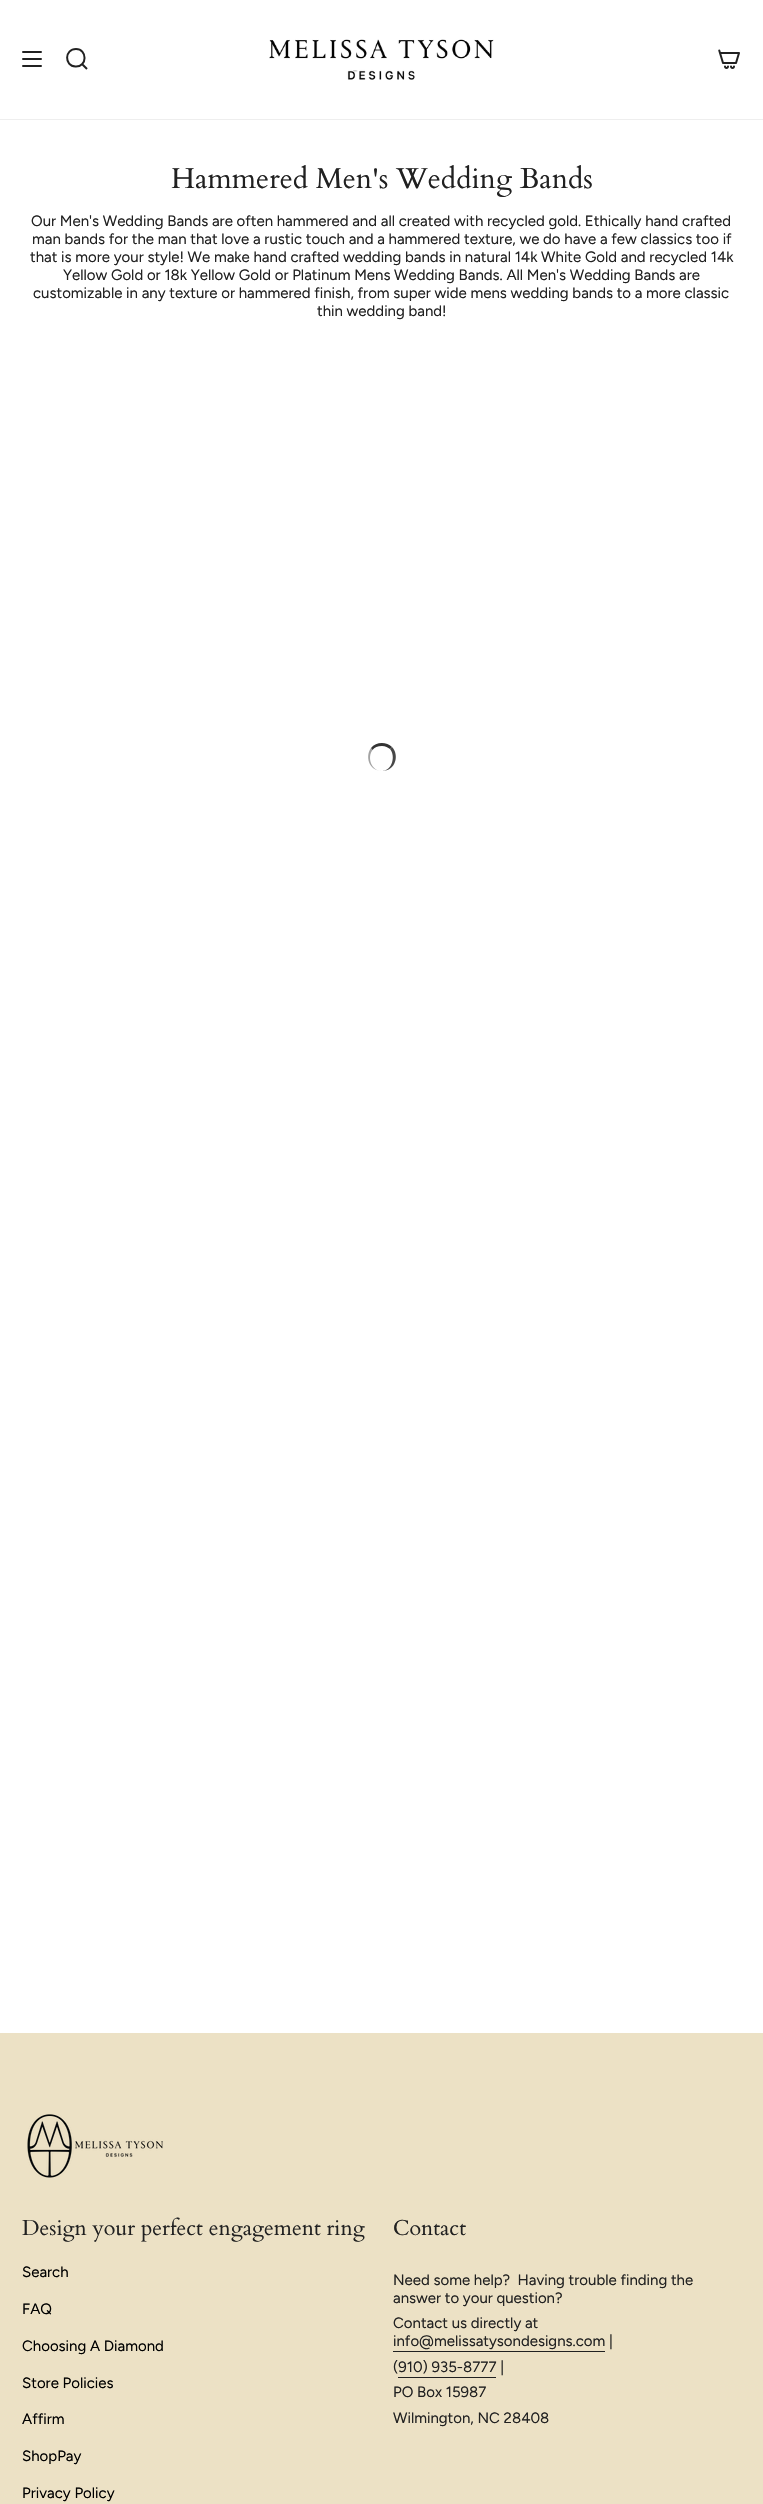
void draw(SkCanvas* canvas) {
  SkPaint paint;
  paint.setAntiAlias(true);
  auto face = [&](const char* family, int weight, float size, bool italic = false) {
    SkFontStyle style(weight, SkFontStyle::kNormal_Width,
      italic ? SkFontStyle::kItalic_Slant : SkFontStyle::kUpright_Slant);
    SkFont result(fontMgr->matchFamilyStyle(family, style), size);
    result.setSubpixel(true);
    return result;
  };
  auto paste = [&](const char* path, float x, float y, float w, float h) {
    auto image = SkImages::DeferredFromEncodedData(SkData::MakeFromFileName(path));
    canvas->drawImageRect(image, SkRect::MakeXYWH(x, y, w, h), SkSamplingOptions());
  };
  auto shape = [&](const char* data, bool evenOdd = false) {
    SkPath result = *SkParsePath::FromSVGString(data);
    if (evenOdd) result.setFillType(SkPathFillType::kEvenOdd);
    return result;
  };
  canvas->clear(0xffffffff);
  paint.setColor(0xffeeeeee);
  canvas->drawRect(SkRect::MakeXYWH(0, 119, 763, 1), paint);
  paint.setStroke(true);
  paint.setStrokeWidth(2);
  paint.setStrokeCap(SkPaint::kRound_Cap);
  paint.setStrokeJoin(SkPaint::kRound_Join);
  paint.setColor(0xff212121);
  canvas->drawPath(shape("M23 52H41M23 59H41M23 66H41"), paint);
  paint.setStrokeCap(SkPaint::kButt_Cap);
  paint.setStrokeJoin(SkPaint::kMiter_Join);
  canvas->drawPath(shape("M76 49C87.5 49 87.5 67 75.5 66.5C64 66 64.5 49 76 49ZM82 64L87 69"), paint);
  paste("img/1.png", 269, 39, 225, 41);
  paste("img/2.png", 718, 49, 22, 20);
  paint.setStroke(false);
  paint.setColor(0xff333333);
  canvas->drawPath(shape("M382 746C377.5 746 374.5 747.5 372.5 750L371 748C376 741.5 386.5 741.5 392 747L390 749C388 747.5 385.5 746 382 746Z"), paint);
  paint.setColor(0xe6333333);
  canvas->drawPath(shape("M392 747C399.5 754.5 396 771 382 771C392 771 396 756 390 749Z"), paint);
  paint.setColor(0x73333333);
  canvas->drawPath(shape("M371 748C365 756 368.5 771 382 771C371 771 367 757 372.5 750Z"), paint);
  paint.setColor(0xffece1c5);
  canvas->drawRect(SkRect::MakeXYWH(0, 2033, 763, 471), paint);
  paste("img/3.png", 27, 2114, 136, 64);
  paint.setColor(0xff212121);
  canvas->drawRect(SkRect::MakeXYWH(393, 2351, 212, 1), paint);
  canvas->drawRect(SkRect::MakeXYWH(398, 2377, 98, 1), paint);
  auto f0 = face("Cardo", 400, 28.75f);
  canvas->drawString("Hammered Men's Wedding Bands", 171, 188, f0, paint);
  auto f1 = face("Figtree", 400, 15);
  {
    const struct { const char* s; float x, y; } items[] = {
      {"Our Men's Wedding Bands are often hammered and all created with recycled gold. Ethically hand crafted", 31, 226},
      {"man bands for the man that love a rustic touch and a hammered texture, we do have a few classics too if", 32, 244},
      {"that is more your style! We make hand crafted wedding bands in natural 14k White Gold and recycled 14k", 30, 262},
      {"Yellow Gold or 18k Yellow Gold or Platinum Mens Wedding Bands. All Men's Wedding Bands are", 63, 280},
      {"customizable in any texture or hammered finish, from super wide mens wedding bands to a more classic", 33, 298},
      {"thin wedding band!", 317, 316},
    };
    for (auto [s, x, y] : items) {
      canvas->drawString(s, x, y, f1, paint);
    }
  }
  auto f2 = face("Cardo", 400, 21.5f);
  canvas->drawString("Design your perfect engagement ring", 22, 2235, f2, paint);
  paint.setColor(0xff000000);
  {
    const struct { const char* s; float x, y; } items[] = {
      {"Search", 22, 2277},
      {"FAQ", 22, 2314},
      {"Choosing A Diamond", 22, 2351},
      {"Store Policies", 22, 2388},
      {"Affirm", 22, 2424},
      {"ShopPay", 22, 2461},
      {"Privacy Policy", 22, 2498},
    };
    for (auto [s, x, y] : items) {
      canvas->drawString(s, x, y, f1, paint);
    }
  }
  paint.setColor(0xff212121);
  canvas->drawString("Contact", 393, 2235, f2, paint);
  {
    const struct { const char* s; float x, y; } items[] = {
      {"Need some help?  Having trouble finding the", 393, 2285},
      {"answer to your question?", 393, 2303},
      {"Contact us directly at", 393, 2328},
      {"info@melissatysondesigns.com |", 393, 2346},
      {"(910) 935-8777 |", 393, 2372},
      {"PO Box 15987", 393, 2397},
      {"Wilmington, NC 28408", 393, 2423},
    };
    for (auto [s, x, y] : items) {
      canvas->drawString(s, x, y, f1, paint);
    }
  }
}
